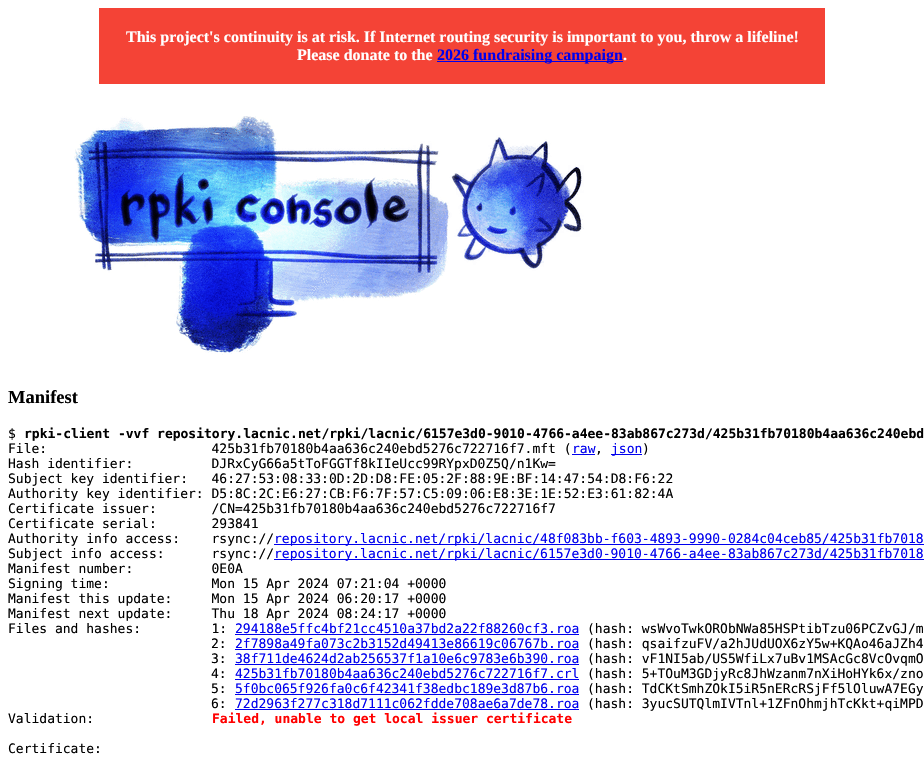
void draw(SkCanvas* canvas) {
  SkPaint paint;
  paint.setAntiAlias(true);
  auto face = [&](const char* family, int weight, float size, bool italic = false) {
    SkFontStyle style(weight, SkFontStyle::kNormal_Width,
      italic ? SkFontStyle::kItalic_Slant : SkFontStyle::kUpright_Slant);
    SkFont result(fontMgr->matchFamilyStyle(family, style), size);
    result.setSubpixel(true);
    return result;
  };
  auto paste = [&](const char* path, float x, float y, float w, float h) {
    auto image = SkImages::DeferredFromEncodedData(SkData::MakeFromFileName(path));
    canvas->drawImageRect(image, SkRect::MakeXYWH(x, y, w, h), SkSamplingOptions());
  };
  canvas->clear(0xffffffff);
  paint.setColor(0xfff44336);
  canvas->drawRect(SkRect::MakeXYWH(99, 8, 726, 76), paint);
  paint.setColor(0xff0000ee);
  canvas->drawRect(SkRect::MakeXYWH(437, 61, 186, 1), paint);
  paste("img/1.png", 74, 116, 510, 239);
  {
    const struct { float x, y, w, h; SkColor color; } items[] = {
      {572, 454, 23, 1, 0xff0000ee},
      {611, 454, 31, 1, 0xff0000ee},
      {274, 544, 650, 1, 0xff0000ee},
      {274, 559, 650, 1, 0xff0000ee},
      {235, 634, 344, 1, 0xff0000ee},
      {235, 649, 344, 1, 0xff0000ee},
      {235, 664, 344, 1, 0xff0000ee},
      {235, 679, 344, 1, 0xff0000ee},
      {235, 694, 344, 1, 0xff0000ee},
      {235, 709, 344, 1, 0xff0000ee},
    };
    for (auto [x, y, w, h, color] : items) {
      paint.setColor(color);
      canvas->drawRect(SkRect::MakeXYWH(x, y, w, h), paint);
    }
  }
  auto f0 = face("Liberation Serif", 700, 16);
  paint.setColor(0xffffffff);
  canvas->drawString("This project's continuity is at risk. If Internet routing security is important to you, throw a lifeline!", 126, 42, f0, paint);
  canvas->drawString("Please donate to the", 297, 60, f0, paint);
  paint.setColor(0xff0000ee);
  canvas->drawString("2026 fundraising campaign", 437, 60, f0, paint);
  paint.setColor(0xffffffff);
  canvas->drawString(".", 623, 60, f0, paint);
  auto f1 = face("Liberation Serif", 700, 18.5f);
  paint.setColor(0xff000000);
  canvas->drawString("Manifest", 8, 403, f1, paint);
  auto f2 = face("DejaVu Sans Mono", 400, 13);
  canvas->drawString("$", 8, 438, f2, paint);
  auto f3 = face("DejaVu Sans Mono", 700, 13);
  canvas->drawString("rpki-client -vvf repository.lacnic.net/rpki/lacnic/6157e3d0-9010-4766-a4ee-83ab867c273d/425b31fb70180b4aa636c240ebd", 24, 438, f3, paint);
  canvas->drawString("File:                     425b31fb70180b4aa636c240ebd5276c722716f7.mft (", 8, 453, f2, paint);
  paint.setColor(0xff0000ee);
  canvas->drawString("raw", 572, 453, f2, paint);
  paint.setColor(0xff000000);
  canvas->drawString(",", 595, 453, f2, paint);
  paint.setColor(0xff0000ee);
  canvas->drawString("json", 611, 453, f2, paint);
  paint.setColor(0xff000000);
  {
    const struct { const char* s; float x, y; } items[] = {
      {")", 642, 453},
      {"Hash identifier:          DJRxCyG66a5tToFGGTf8kIIeUcc99RYpxD0Z5Q/n1Kw=", 8, 468},
      {"Subject key identifier:   46:27:53:08:33:0D:2D:D8:FE:05:2F:88:9E:BF:14:47:54:D8:F6:22", 8, 483},
      {"Authority key identifier: D5:8C:2C:E6:27:CB:F6:7F:57:C5:09:06:E8:3E:1E:52:E3:61:82:4A", 8, 498},
      {"Certificate issuer:       /CN=425b31fb70180b4aa636c240ebd5276c722716f7", 8, 513},
      {"Certificate serial:       293841", 8, 528},
      {"Authority info access:    rsync://", 8, 543},
    };
    for (auto [s, x, y] : items) {
      canvas->drawString(s, x, y, f2, paint);
    }
  }
  paint.setColor(0xff0000ee);
  canvas->drawString("repository.lacnic.net/rpki/lacnic/48f083bb-f603-4893-9990-0284c04ceb85/425b31fb7018", 274, 543, f2, paint);
  paint.setColor(0xff000000);
  canvas->drawString("Subject info access:      rsync://", 8, 558, f2, paint);
  paint.setColor(0xff0000ee);
  canvas->drawString("repository.lacnic.net/rpki/lacnic/6157e3d0-9010-4766-a4ee-83ab867c273d/425b31fb7018", 274, 558, f2, paint);
  paint.setColor(0xff000000);
  {
    const struct { const char* s; float x, y; } items[] = {
      {"Manifest number:          0E0A", 8, 573},
      {"Signing time:             Mon 15 Apr 2024 07:21:04 +0000", 8, 588},
      {"Manifest this update:     Mon 15 Apr 2024 06:20:17 +0000", 8, 603},
      {"Manifest next update:     Thu 18 Apr 2024 08:24:17 +0000", 8, 618},
      {"Files and hashes:         1:", 8, 633},
    };
    for (auto [s, x, y] : items) {
      canvas->drawString(s, x, y, f2, paint);
    }
  }
  paint.setColor(0xff0000ee);
  canvas->drawString("294188e5ffc4bf21cc4510a37bd2a22f88260cf3.roa", 235, 633, f2, paint);
  paint.setColor(0xff000000);
  canvas->drawString("(hash: wsWvoTwkORObNWa85HSPtibTzu06PCZvGJ/m", 587, 633, f2, paint);
  canvas->drawString("2:", 211, 648, f2, paint);
  paint.setColor(0xff0000ee);
  canvas->drawString("2f7898a49fa073c2b3152d49413e86619c06767b.roa", 235, 648, f2, paint);
  paint.setColor(0xff000000);
  canvas->drawString("(hash: qsaifzuFV/a2hJUdUOX6zY5w+KQAo46aJZh4", 587, 648, f2, paint);
  canvas->drawString("3:", 211, 663, f2, paint);
  paint.setColor(0xff0000ee);
  canvas->drawString("38f711de4624d2ab256537f1a10e6c9783e6b390.roa", 235, 663, f2, paint);
  paint.setColor(0xff000000);
  canvas->drawString("(hash: vF1NI5ab/US5WfiLx7uBv1MSAcGc8VcOvqmO", 587, 663, f2, paint);
  canvas->drawString("4:", 211, 678, f2, paint);
  paint.setColor(0xff0000ee);
  canvas->drawString("425b31fb70180b4aa636c240ebd5276c722716f7.crl", 235, 678, f2, paint);
  paint.setColor(0xff000000);
  canvas->drawString("(hash: 5+TOuM3GDjyRc8JhWzanm7nXiHoHYk6x/zno", 587, 678, f2, paint);
  canvas->drawString("5:", 211, 693, f2, paint);
  paint.setColor(0xff0000ee);
  canvas->drawString("5f0bc065f926fa0c6f42341f38edbc189e3d87b6.roa", 235, 693, f2, paint);
  paint.setColor(0xff000000);
  canvas->drawString("(hash: TdCKtSmhZOkI5iR5nERcRSjFf5lOluwA7EGy", 587, 693, f2, paint);
  canvas->drawString("6:", 211, 708, f2, paint);
  paint.setColor(0xff0000ee);
  canvas->drawString("72d2963f277c318d7111c062fdde708ae6a7de78.roa", 235, 708, f2, paint);
  paint.setColor(0xff000000);
  canvas->drawString("(hash: 3yucSUTQlmIVTnl+1ZFnOhmjhTcKkt+qiMPD", 587, 708, f2, paint);
  canvas->drawString("Validation:", 8, 723, f2, paint);
  paint.setColor(0xffff0000);
  canvas->drawString("Failed, unable to get local issuer certificate", 212, 723, f3, paint);
  paint.setColor(0xff000000);
  canvas->drawString("Certificate:", 8, 753, f2, paint);
}
